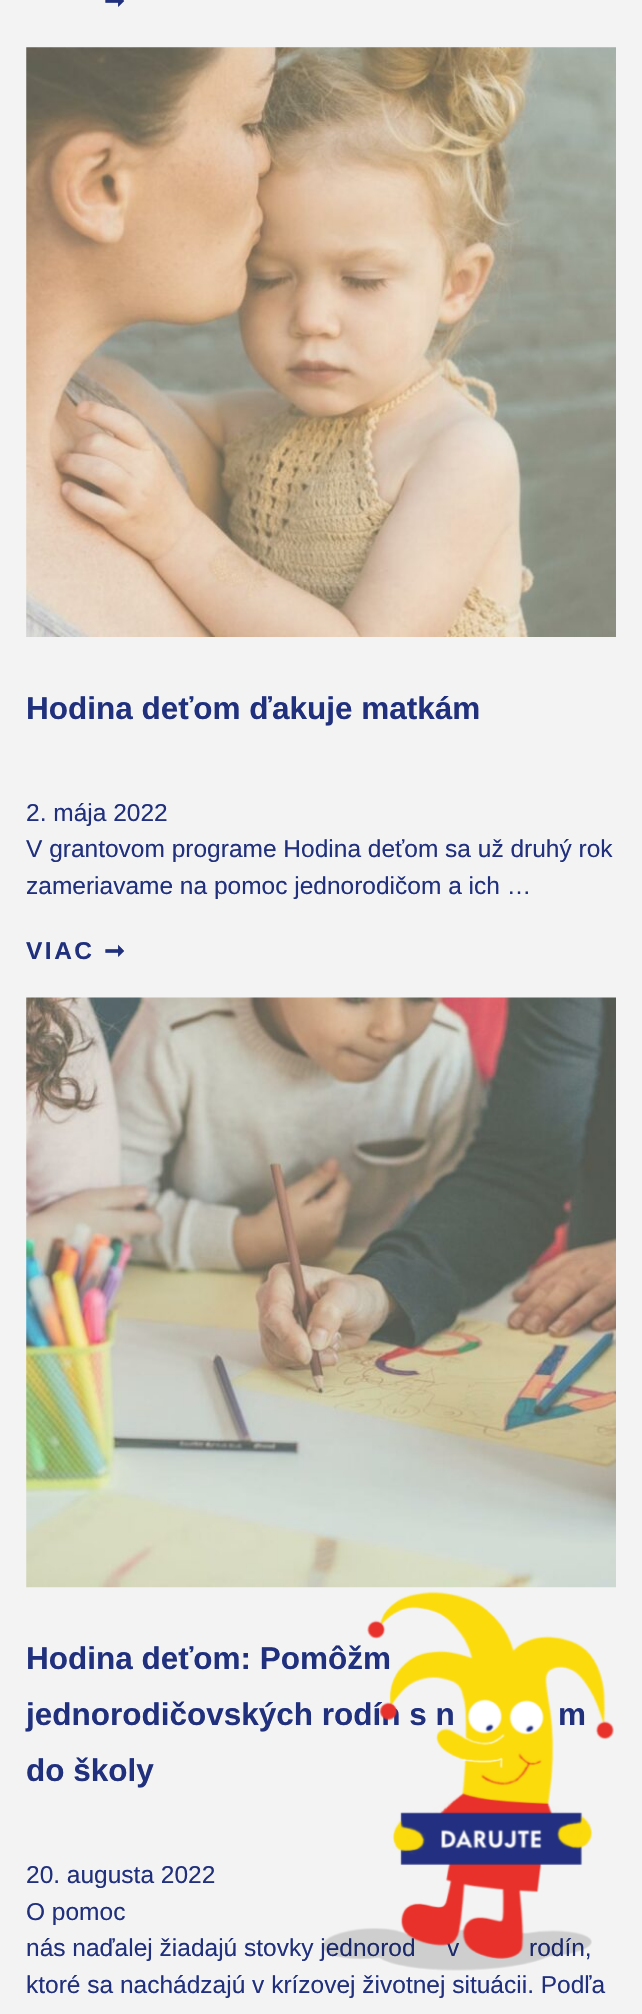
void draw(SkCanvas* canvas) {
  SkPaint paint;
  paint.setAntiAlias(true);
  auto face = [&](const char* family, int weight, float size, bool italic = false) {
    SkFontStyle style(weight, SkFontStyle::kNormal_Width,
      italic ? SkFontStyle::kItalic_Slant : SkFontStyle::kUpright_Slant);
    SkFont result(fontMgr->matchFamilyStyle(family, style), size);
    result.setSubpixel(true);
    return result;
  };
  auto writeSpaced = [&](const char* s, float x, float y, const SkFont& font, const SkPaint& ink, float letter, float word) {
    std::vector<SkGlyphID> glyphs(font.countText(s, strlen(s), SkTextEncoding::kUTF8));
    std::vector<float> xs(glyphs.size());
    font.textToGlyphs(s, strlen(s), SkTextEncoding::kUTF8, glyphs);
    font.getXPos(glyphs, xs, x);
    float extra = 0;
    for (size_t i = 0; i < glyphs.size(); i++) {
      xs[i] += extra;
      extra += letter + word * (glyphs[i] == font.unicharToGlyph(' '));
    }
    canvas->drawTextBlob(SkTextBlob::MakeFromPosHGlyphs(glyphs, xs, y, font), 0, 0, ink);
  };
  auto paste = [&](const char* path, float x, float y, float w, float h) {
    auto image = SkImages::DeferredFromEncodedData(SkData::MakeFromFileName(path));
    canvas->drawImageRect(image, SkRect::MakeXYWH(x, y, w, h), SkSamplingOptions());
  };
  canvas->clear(0xfff3f3f3);
  paste("img/1.png", 26, 47, 590, 590);
  paste("img/2.png", 26, 997, 590, 591);
  auto f0 = face("DejaVu Sans", 700, 24.5f);
  paint.setColor(0xff20307d);
  writeSpaced("➞", 104, 9, f0, paint, 2.5f, 0);
  auto f1 = face("Liberation Sans", 700, 31.5f);
  canvas->drawString("Hodina deťom ďakuje matkám", 26, 719, f1, paint);
  auto f2 = face("Liberation Sans", 400, 24.5f);
  {
    const struct { const char* s; float x, y; } items[] = {
      {"2. mája 2022", 26, 821},
      {"V grantovom programe Hodina deťom sa už druhý rok", 26, 857},
      {"zameriavame na pomoc jednorodičom a ich …", 26, 894},
    };
    for (auto [s, x, y] : items) {
      canvas->drawString(s, x, y, f2, paint);
    }
  }
  auto f3 = face("Liberation Sans", 700, 24.5f);
  writeSpaced("VIAC", 26, 959, f3, paint, 2.5f, 0);
  writeSpaced("➞", 104, 959, f0, paint, 2.5f, 0);
  {
    const struct { const char* s; float x, y; } items[] = {
      {"Hodina deťom: Pomôžm", 26, 1669},
      {"jednorodičovských rodín s n", 26, 1725},
      {"m", 558, 1725},
      {"do školy", 26, 1781},
    };
    for (auto [s, x, y] : items) {
      canvas->drawString(s, x, y, f1, paint);
    }
  }
  {
    const struct { const char* s; float x, y; } items[] = {
      {"20. augusta 2022", 26, 1883},
      {"O pomoc", 26, 1920},
      {"nás naďalej žiadajú stovky jednorod", 26, 1956},
      {"v", 447, 1956},
      {"rodín,", 529, 1956},
      {"ktoré sa nachádzajú v krízovej životnej situácii. Podľa", 26, 1993},
    };
    for (auto [s, x, y] : items) {
      canvas->drawString(s, x, y, f2, paint);
    }
  }
  paste("img/3.png", 322, 1591, 292, 380);
}
